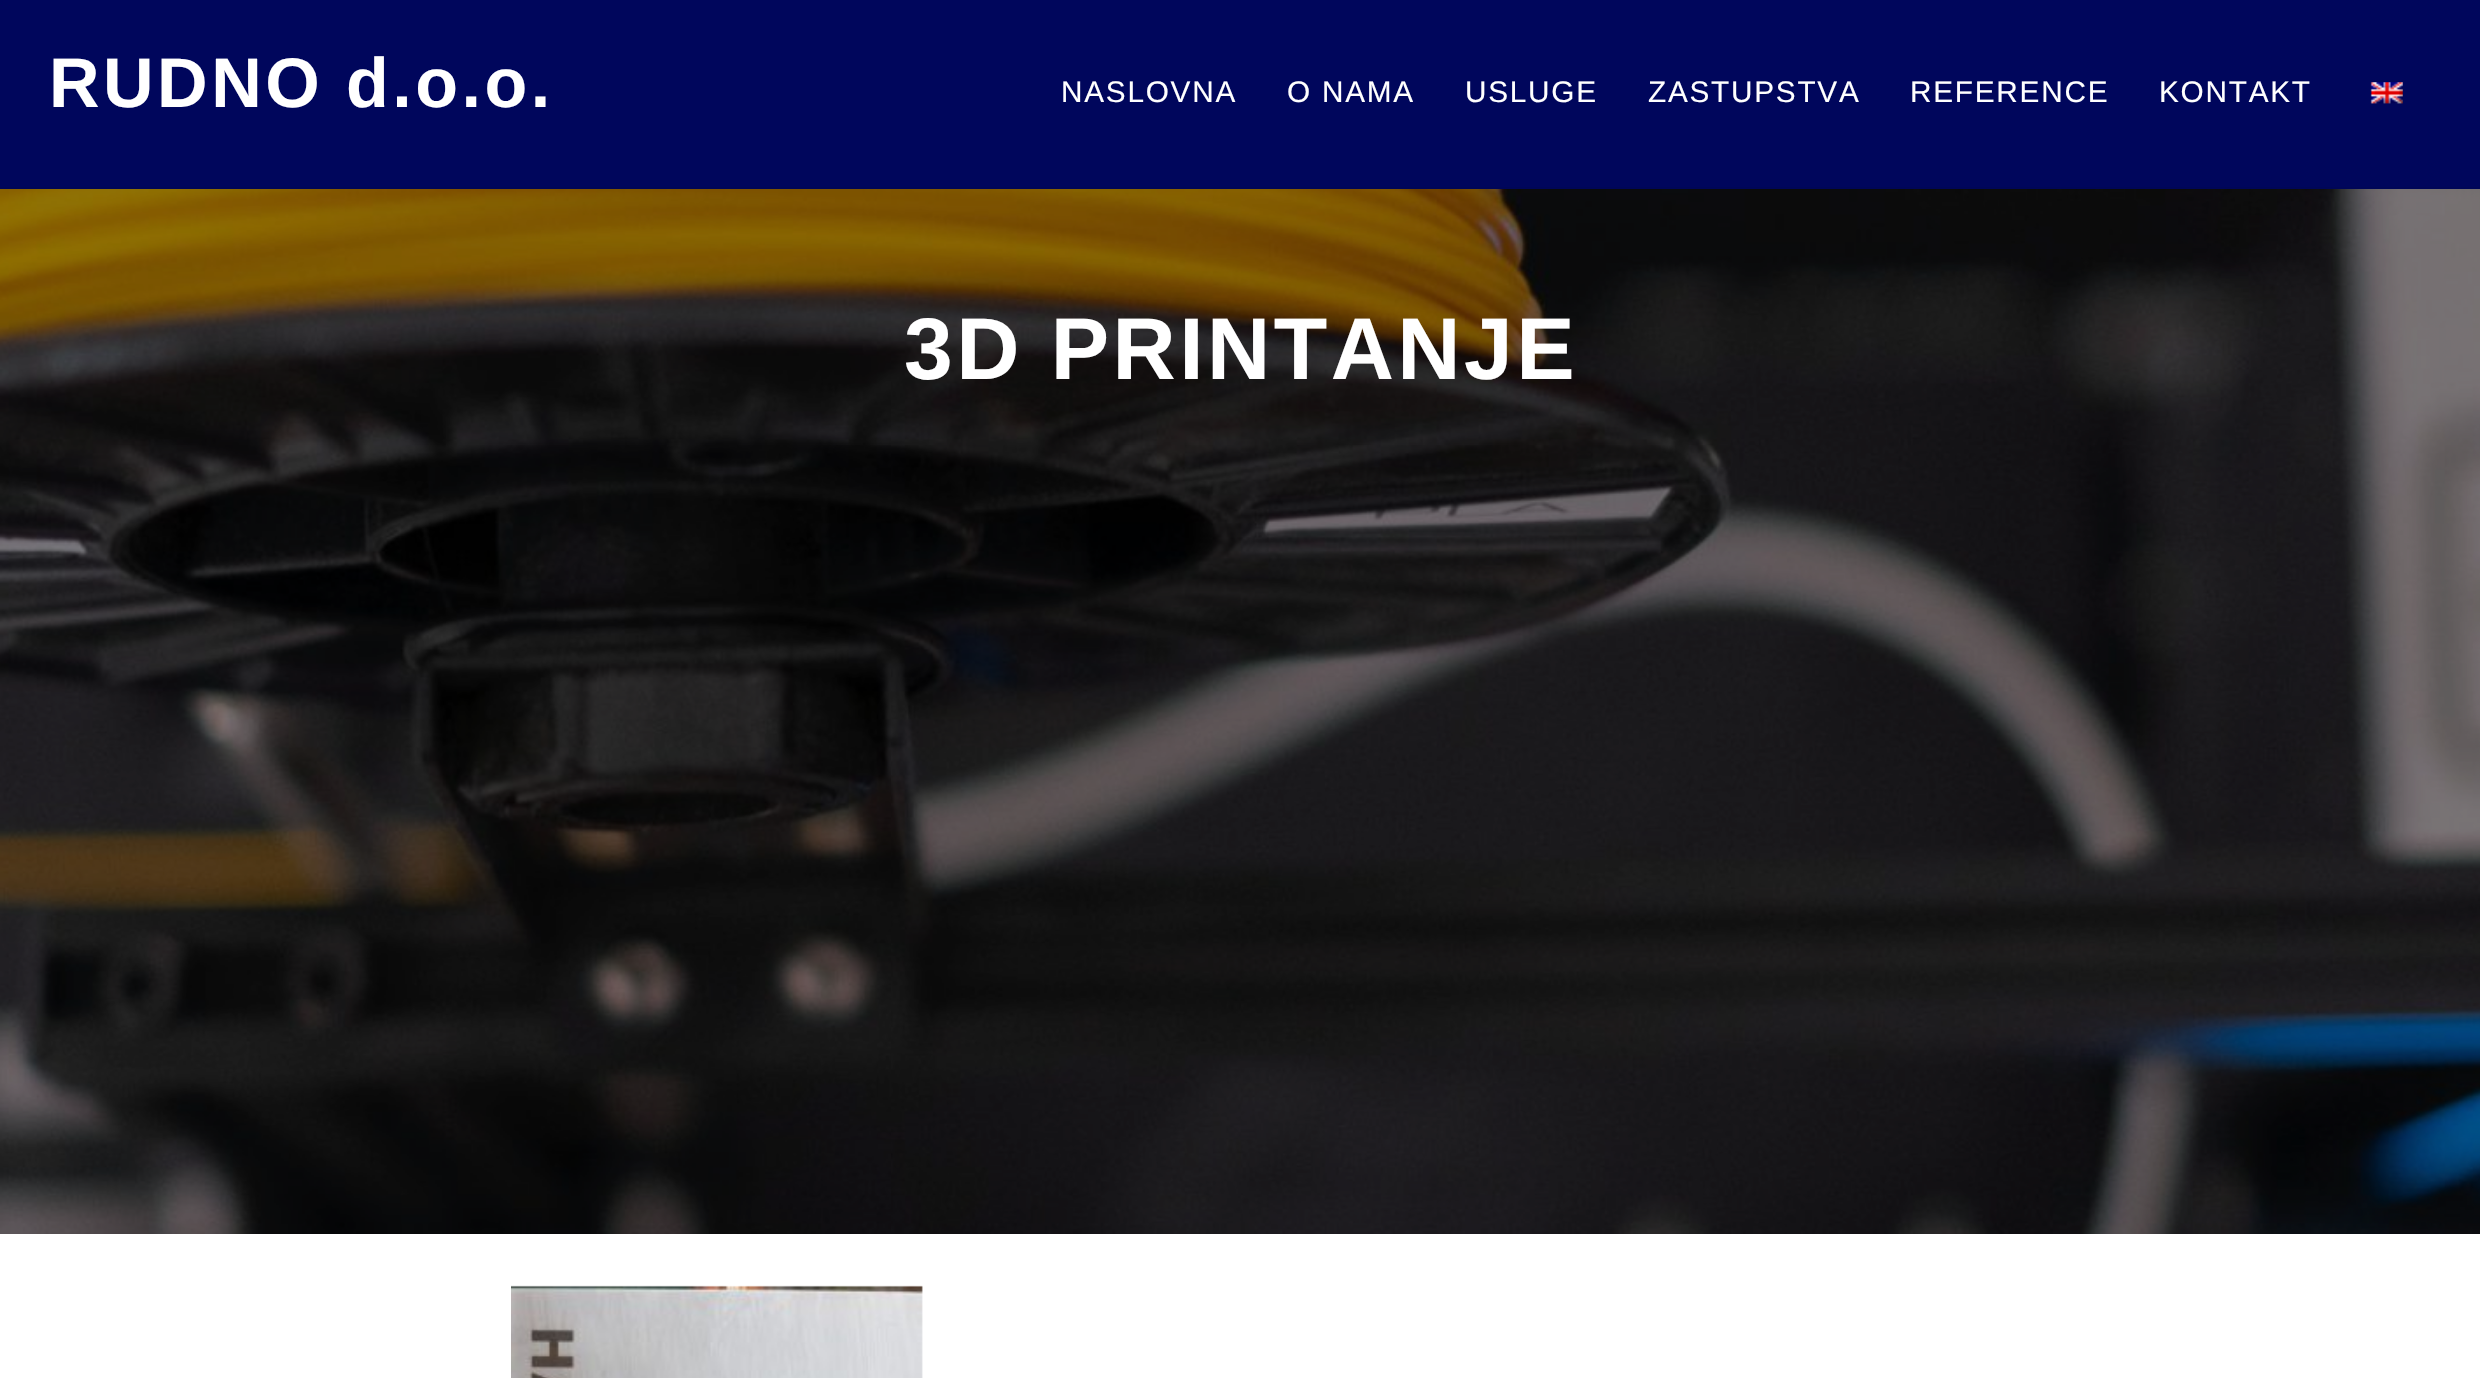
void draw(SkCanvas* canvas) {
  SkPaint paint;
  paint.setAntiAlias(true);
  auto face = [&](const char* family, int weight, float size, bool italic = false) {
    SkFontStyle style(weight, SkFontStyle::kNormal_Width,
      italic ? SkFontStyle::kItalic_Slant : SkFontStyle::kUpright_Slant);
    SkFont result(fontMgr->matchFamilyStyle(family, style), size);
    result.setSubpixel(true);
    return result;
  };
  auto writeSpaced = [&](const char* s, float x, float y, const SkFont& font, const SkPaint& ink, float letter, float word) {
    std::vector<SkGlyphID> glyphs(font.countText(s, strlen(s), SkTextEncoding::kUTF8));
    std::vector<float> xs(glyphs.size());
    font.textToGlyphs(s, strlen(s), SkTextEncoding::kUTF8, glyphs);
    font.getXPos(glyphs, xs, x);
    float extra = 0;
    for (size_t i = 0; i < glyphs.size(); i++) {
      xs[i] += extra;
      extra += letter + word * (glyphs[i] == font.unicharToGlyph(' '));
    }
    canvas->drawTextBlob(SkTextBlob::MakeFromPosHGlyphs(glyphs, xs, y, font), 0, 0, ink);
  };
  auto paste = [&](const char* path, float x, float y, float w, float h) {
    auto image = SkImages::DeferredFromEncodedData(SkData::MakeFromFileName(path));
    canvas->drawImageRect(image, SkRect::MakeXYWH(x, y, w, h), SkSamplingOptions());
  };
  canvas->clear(0xffffffff);
  paint.setColor(0xff00065c);
  canvas->drawRect(SkRect::MakeXYWH(0, 0, 2480, 187), paint);
  paint.setColor(0xff000657);
  canvas->drawRect(SkRect::MakeXYWH(0, 187, 2480, 2), paint);
  paste("img/1.png", 2370, 82, 33, 22);
  paste("img/2.png", 0, 189, 2480, 1045);
  paste("img/3.png", 511, 1285, 412, 93);
  auto f0 = face("Liberation Sans", 700, 70);
  paint.setColor(0xffffffff);
  writeSpaced("RUDNO d.o.o.", 49, 107, f0, paint, 3.5f, 0);
  auto f1 = face("Liberation Sans", 400, 29.75f);
  {
    const struct { const char* s; float x, y; } items[] = {
      {"NASLOVNA", 1061, 102},
      {"O NAMA", 1287, 102},
      {"USLUGE", 1465, 102},
      {"ZASTUPSTVA", 1648, 102},
      {"REFERENCE", 1910, 102},
      {"KONTAKT", 2159, 102},
    };
    for (auto [s, x, y] : items) {
      writeSpaced(s, x, y, f1, paint, 1.75f, 0);
    }
  }
  auto f2 = face("Liberation Sans", 700, 87.5f);
  writeSpaced("3D PRINTANJE", 904, 379, f2, paint, 3.5f, 0);
}
